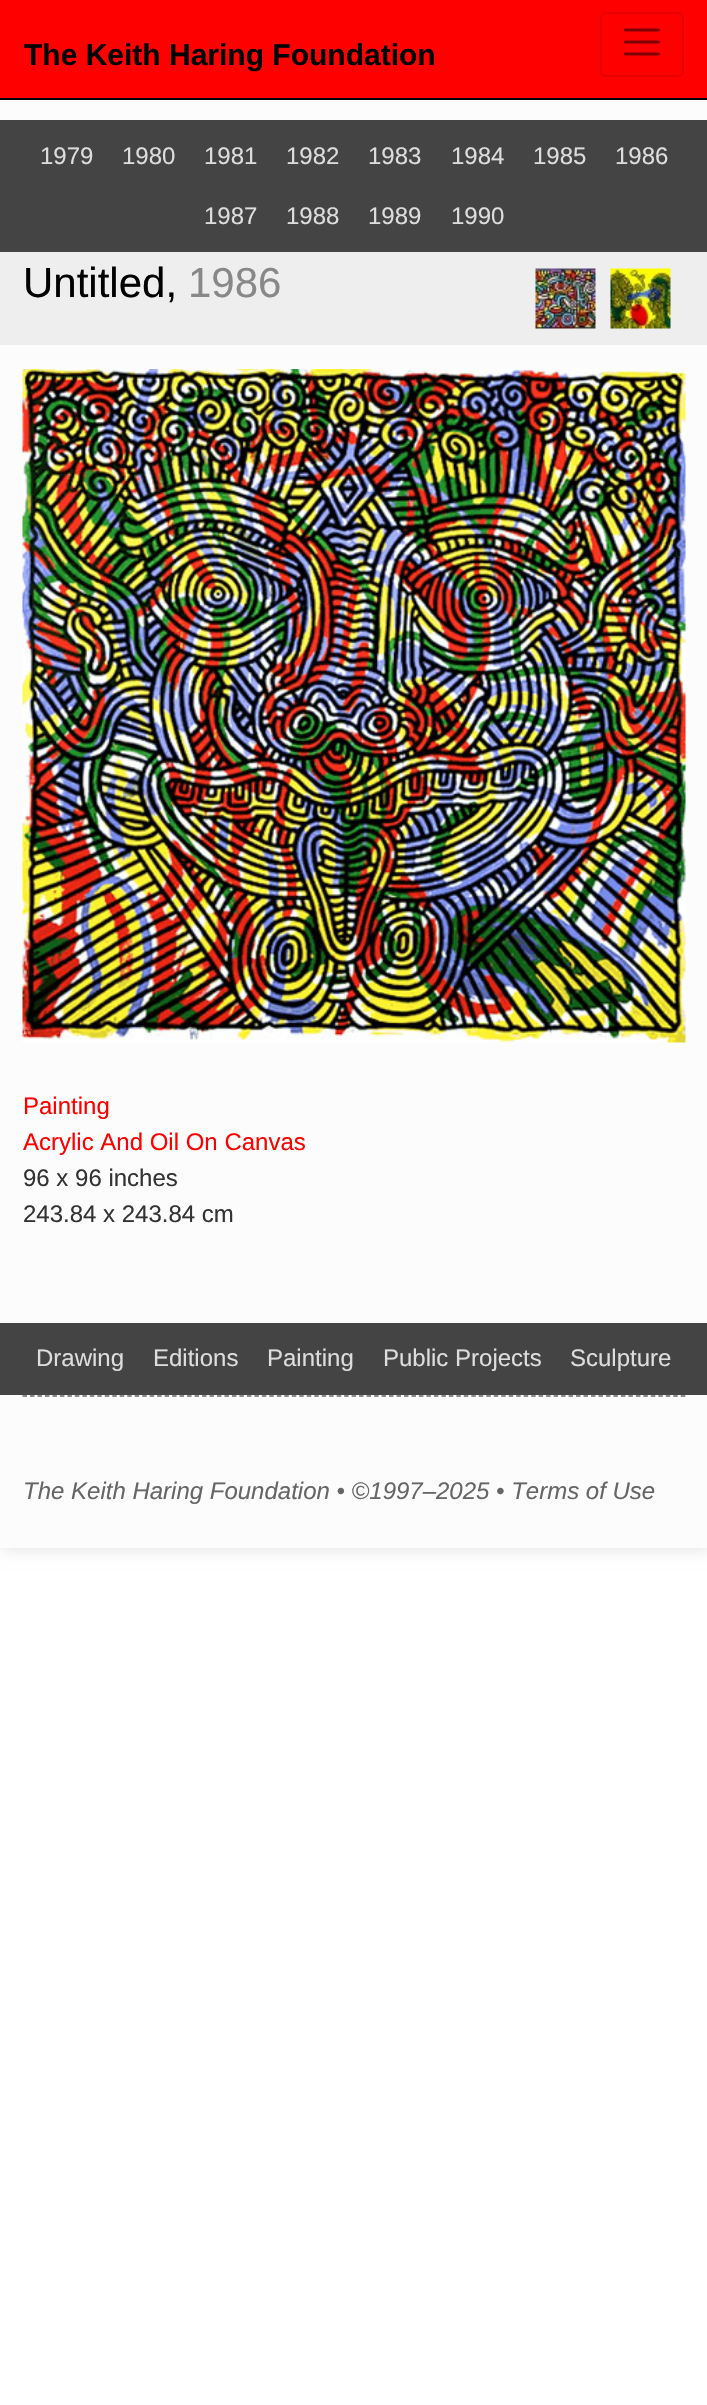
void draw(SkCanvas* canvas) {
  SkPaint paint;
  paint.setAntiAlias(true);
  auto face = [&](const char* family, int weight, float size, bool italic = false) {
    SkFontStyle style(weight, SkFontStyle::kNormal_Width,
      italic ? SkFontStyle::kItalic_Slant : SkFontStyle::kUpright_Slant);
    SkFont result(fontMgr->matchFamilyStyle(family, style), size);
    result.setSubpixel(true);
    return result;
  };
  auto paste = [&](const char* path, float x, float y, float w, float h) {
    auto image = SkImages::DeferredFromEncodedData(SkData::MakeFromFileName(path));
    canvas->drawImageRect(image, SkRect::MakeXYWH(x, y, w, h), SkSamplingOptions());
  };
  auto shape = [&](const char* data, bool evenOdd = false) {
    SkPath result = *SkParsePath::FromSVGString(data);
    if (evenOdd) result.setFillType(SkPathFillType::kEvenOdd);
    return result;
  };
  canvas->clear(0xffffffff);
  paint.setColor(0x1a000000);
  paint.setMaskFilter(SkMaskFilter::MakeBlur(kNormal_SkBlurStyle, 7));
  canvas->drawRect(SkRect::MakeXYWH(2, 2, 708, 1548), paint);
  paint.setMaskFilter(nullptr);
  paint.setColor(0xffff0000);
  canvas->drawRect(SkRect::MakeXYWH(0, 0, 707, 98), paint);
  paint.setColor(0xff000000);
  canvas->drawRect(SkRect::MakeXYWH(0, 98, 707, 2), paint);
  paint.setStroke(true);
  paint.setStrokeWidth(2);
  paint.setColor(0xffe60000);
  canvas->drawRoundRect(SkRect::MakeXYWH(601, 13, 82, 63), 5, 5, paint);
  paint.setStrokeWidth(3);
  paint.setStrokeCap(SkPaint::kRound_Cap);
  paint.setColor(0xff800000);
  canvas->drawPath(shape("M625.5 30H658.5M625.5 42H658.5M625.5 54H658.5"), paint);
  paint.setStroke(false);
  {
    const struct { float x, y, w, h; SkColor color; } items[] = {
      {0, 100, 707, 1448, 0xfffcfcfc},
      {0, 120, 707, 132, 0xff444444},
      {0, 252, 707, 93, 0xffeeeeee},
    };
    for (auto [x, y, w, h, color] : items) {
      paint.setColor(color);
      canvas->drawRect(SkRect::MakeXYWH(x, y, w, h), paint);
    }
  }
  paste("img/1.png", 535, 268, 61, 61);
  paste("img/2.png", 610, 268, 61, 61);
  paste("img/3.png", 22, 369, 664, 674);
  paint.setColor(0xff444444);
  canvas->drawRect(SkRect::MakeXYWH(0, 1323, 707, 72), paint);
  paint.setStroke(true);
  paint.setStrokeWidth(1.5f);
  paint.setStrokeCap(SkPaint::kButt_Cap);
  paint.setColor(0xff666666);
  paint.setPathEffect(SkDashPathEffect::Make({{4.5f, 2.98f}}, 0));
  canvas->drawPath(shape("M22.5 1396H685.5"), paint);
  paint.setPathEffect(nullptr);
  auto f0 = face("Liberation Sans", 700, 30);
  paint.setStroke(false);
  paint.setColor(0xff000000);
  canvas->drawString("The Keith Haring Foundation", 24, 65, f0, paint);
  auto f1 = face("Liberation Sans", 400, 24);
  paint.setColor(0xffdddddd);
  {
    const struct { const char* s; float x, y; } items[] = {
      {"1979", 40, 164},
      {"1980", 122, 164},
      {"1981", 204, 164},
      {"1982", 286, 164},
      {"1983", 368, 164},
      {"1984", 451, 164},
      {"1985", 533, 164},
      {"1986", 615, 164},
      {"1987", 204, 224},
      {"1988", 286, 224},
      {"1989", 368, 224},
      {"1990", 451, 224},
    };
    for (auto [s, x, y] : items) {
      canvas->drawString(s, x, y, f1, paint);
    }
  }
  auto f2 = face("Liberation Sans", 400, 42);
  paint.setColor(0xff000000);
  canvas->drawString("Untitled,", 23, 297, f2, paint);
  paint.setColor(0xff888888);
  canvas->drawString("1986", 188, 297, f2, paint);
  paint.setColor(0xffff0000);
  canvas->drawString("Painting", 23, 1114, f1, paint);
  canvas->drawString("Acrylic And Oil On Canvas", 23, 1150, f1, paint);
  paint.setColor(0xff333333);
  canvas->drawString("96 x 96 inches", 23, 1186, f1, paint);
  canvas->drawString("243.84 x 243.84 cm", 23, 1222, f1, paint);
  paint.setColor(0xffdddddd);
  {
    const struct { const char* s; float x, y; } items[] = {
      {"Drawing", 36, 1366},
      {"Editions", 153, 1366},
      {"Painting", 267, 1366},
      {"Public Projects", 383, 1366},
      {"Sculpture", 570, 1366},
    };
    for (auto [s, x, y] : items) {
      canvas->drawString(s, x, y, f1, paint);
    }
  }
  auto f3 = face("Liberation Sans", 400, 24, true);
  paint.setColor(0xff666666);
  canvas->drawString("The Keith Haring Foundation • ©1997–2025 • Terms of Use", 23, 1499, f3, paint);
}
